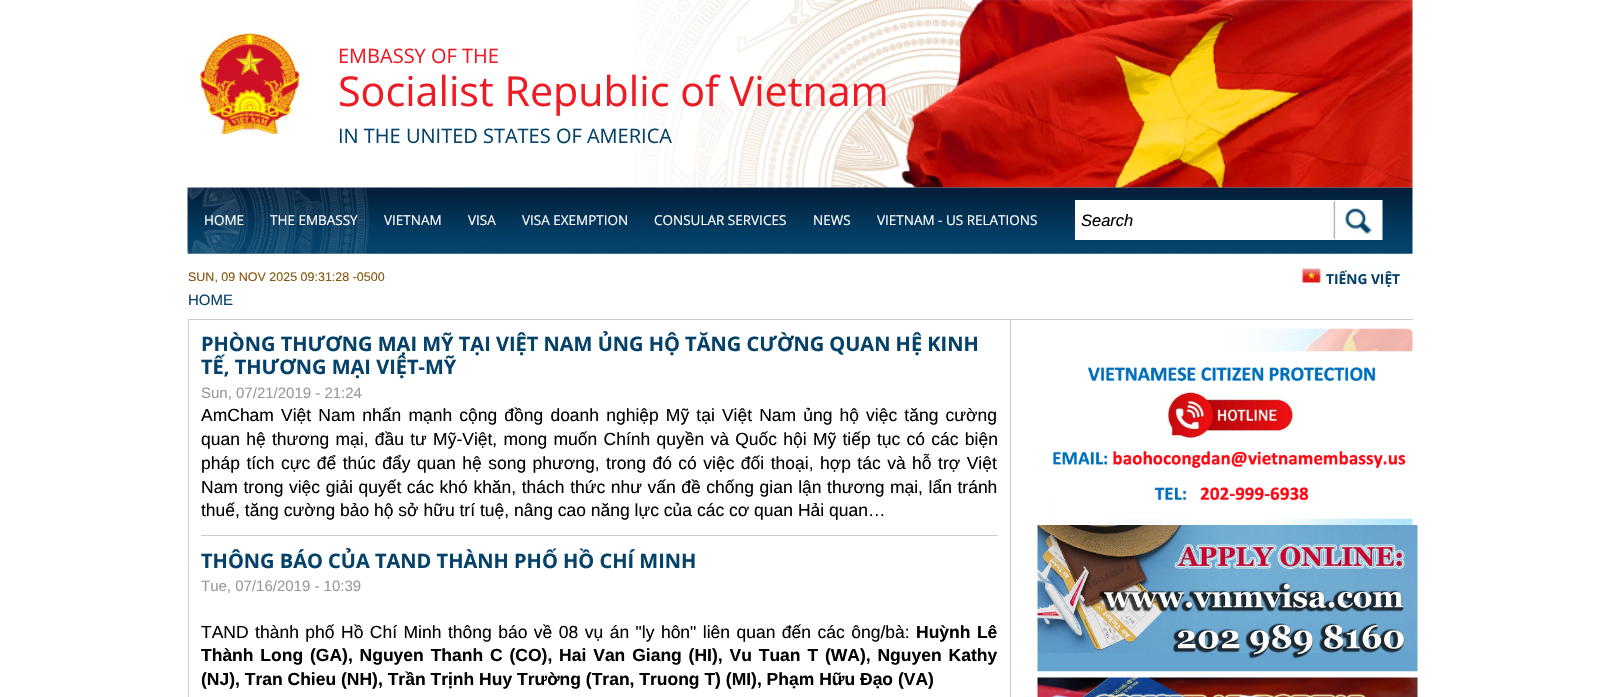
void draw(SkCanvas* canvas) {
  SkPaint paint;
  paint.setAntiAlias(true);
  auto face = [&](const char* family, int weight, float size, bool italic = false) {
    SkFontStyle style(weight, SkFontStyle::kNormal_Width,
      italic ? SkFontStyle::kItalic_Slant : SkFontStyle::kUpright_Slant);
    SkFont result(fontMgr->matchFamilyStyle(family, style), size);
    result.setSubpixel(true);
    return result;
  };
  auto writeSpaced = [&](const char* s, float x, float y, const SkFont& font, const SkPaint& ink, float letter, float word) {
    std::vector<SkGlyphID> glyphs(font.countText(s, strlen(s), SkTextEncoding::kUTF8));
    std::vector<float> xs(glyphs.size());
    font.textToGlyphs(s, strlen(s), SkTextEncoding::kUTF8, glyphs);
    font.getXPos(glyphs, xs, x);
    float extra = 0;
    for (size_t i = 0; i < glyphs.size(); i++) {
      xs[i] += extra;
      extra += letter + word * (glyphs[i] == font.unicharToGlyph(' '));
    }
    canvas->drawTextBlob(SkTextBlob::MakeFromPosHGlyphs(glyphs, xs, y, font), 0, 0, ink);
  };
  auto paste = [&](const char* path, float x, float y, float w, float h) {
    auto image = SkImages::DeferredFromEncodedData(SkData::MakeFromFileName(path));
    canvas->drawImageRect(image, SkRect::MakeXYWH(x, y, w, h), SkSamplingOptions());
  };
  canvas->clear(0xffffffff);
  paste("img/1.png", 634, 0, 779, 188);
  paste("img/2.png", 200, 33, 100, 101);
  paste("img/3.png", 187, 187, 1226, 67);
  paint.setColor(0xffffffff);
  canvas->drawRect(SkRect::MakeXYWH(1075, 200, 259, 40), paint);
  paste("img/4.png", 1333, 200, 50, 40);
  paste("img/5.png", 1301, 268, 21, 15);
  {
    const struct { float x, y, w, h; SkColor color; } items[] = {
      {188, 319, 1225, 1, 0xffcccccc},
      {1010, 320, 1, 377, 0xffcccccc},
      {188, 320, 1, 377, 0xffcccccc},
      {201, 535, 797, 1, 0xffcccccc},
    };
    for (auto [x, y, w, h, color] : items) {
      paint.setColor(color);
      canvas->drawRect(SkRect::MakeXYWH(x, y, w, h), paint);
    }
  }
  paste("img/6.png", 1050, 328, 363, 197);
  paste("img/7.png", 1053, 351, 360, 168);
  paste("img/8.png", 1037, 525, 381, 147);
  paste("img/9.png", 1037, 677, 381, 20);
  auto f0 = face("Open Sans", 400, 20);
  paint.setColor(0xffed1c24);
  canvas->drawString("EMBASSY OF THE", 338, 63, f0, paint);
  auto f1 = face("Open Sans", 400, 41.25f);
  canvas->drawString("Socialist Republic of Vietnam", 338, 106, f1, paint);
  paint.setColor(0xff05426a);
  canvas->drawString("IN THE UNITED STATES OF AMERICA", 338, 143, f0, paint);
  auto f2 = face("Open Sans", 400, 13.5f);
  paint.setColor(0xffffffff);
  {
    const struct { const char* s; float x, y; } items[] = {
      {"HOME", 204, 225},
      {"THE EMBASSY", 270, 225},
      {"VIETNAM", 384, 225},
      {"VISA", 468, 225},
      {"VISA EXEMPTION", 522, 225},
      {"CONSULAR SERVICES", 654, 225},
      {"NEWS", 813, 225},
      {"VIETNAM - US RELATIONS", 877, 225},
    };
    for (auto [s, x, y] : items) {
      canvas->drawString(s, x, y, f2, paint);
    }
  }
  auto f3 = face("Liberation Sans", 400, 16.5f, true);
  paint.setColor(0xff000000);
  canvas->drawString("Search", 1081, 226, f3, paint);
  auto f4 = face("Open Sans", 700, 13.75f);
  paint.setColor(0xff05426a);
  canvas->drawString("TIẾNG VIỆT", 1326, 284, f4, paint);
  auto f5 = face("Liberation Sans", 400, 12.5f);
  paint.setColor(0xff855407);
  canvas->drawString("SUN, 09 NOV 2025 09:31:28 -0500", 188, 281, f5, paint);
  auto f6 = face("Liberation Sans", 400, 15);
  paint.setColor(0xff05426a);
  canvas->drawString("HOME", 188, 305, f6, paint);
  auto f7 = face("Open Sans", 700, 20);
  canvas->drawString("PHÒNG THƯƠNG MẠI MỸ TẠI VIỆT NAM ỦNG HỘ TĂNG CƯỜNG QUAN HỆ KINH", 201, 351, f7, paint);
  canvas->drawString("TẾ, THƯƠNG MẠI VIỆT-MỸ", 201, 374, f7, paint);
  paint.setColor(0xff999999);
  canvas->drawString("Sun, 07/21/2019 - 21:24", 201, 398, f6, paint);
  auto f8 = face("Liberation Sans", 400, 17.5f);
  paint.setColor(0xff000000);
  writeSpaced("AmCham Việt Nam nhấn mạnh cộng đồng doanh nghiệp Mỹ tại Việt Nam ủng hộ việc tăng cường", 201, 421, f8, paint, 0, 2.25f);
  writeSpaced("quan hệ thương mại, đầu tư Mỹ-Việt, mong muốn Chính quyền và Quốc hội Mỹ tiếp tục có các biện", 201, 445, f8, paint, 0, 1.4f);
  writeSpaced("pháp tích cực để thúc đẩy quan hệ song phương, trong đó có việc đối thoại, hợp tác và hỗ trợ Việt", 201, 469, f8, paint, 0, 1.6f);
  writeSpaced("Nam trong việc giải quyết các khó khăn, thách thức như vấn đề chống gian lận thương mại, lẩn tránh", 201, 493, f8, paint, 0, 0.7f);
  canvas->drawString("thuế, tăng cường bảo hộ sở hữu trí tuệ, nâng cao năng lực của các cơ quan Hải quan…", 201, 516, f8, paint);
  paint.setColor(0xff05426a);
  canvas->drawString("THÔNG BÁO CỦA TAND THÀNH PHỐ HỒ CHÍ MINH", 201, 568, f7, paint);
  paint.setColor(0xff999999);
  canvas->drawString("Tue, 07/16/2019 - 10:39", 201, 591, f6, paint);
  paint.setColor(0xff000000);
  writeSpaced("TAND thành phố Hồ Chí Minh thông báo về 08 vụ án \"ly hôn\" liên quan đến các ông/bà:", 201, 638, f8, paint, 0, 1.6f);
  auto f9 = face("Liberation Sans", 700, 17.5f);
  writeSpaced("Huỳnh Lê", 916, 638, f9, paint, 0, 1.6f);
  writeSpaced("Thành Long (GA), Nguyen Thanh C (CO), Hai Van Giang (HI), Vu Tuan T (WA), Nguyen Kathy", 201, 661, f9, paint, 0, 2);
  canvas->drawString("(NJ), Tran Chieu (NH), Trần Trịnh Huy Trường (Tran, Truong T) (MI), Phạm Hữu Đạo (VA)", 201, 685, f9, paint);
}
